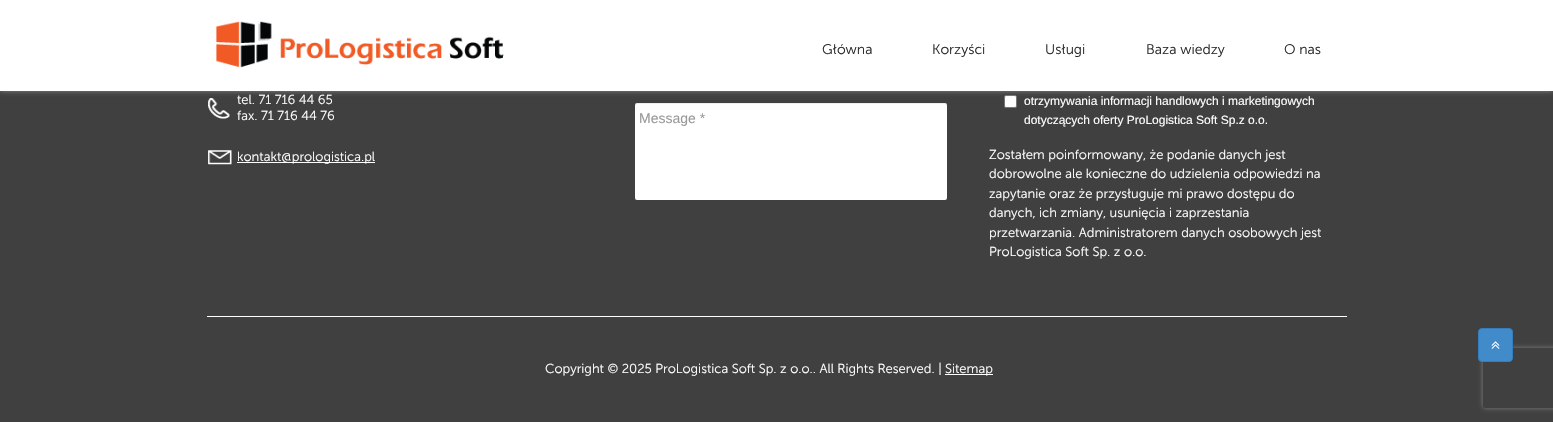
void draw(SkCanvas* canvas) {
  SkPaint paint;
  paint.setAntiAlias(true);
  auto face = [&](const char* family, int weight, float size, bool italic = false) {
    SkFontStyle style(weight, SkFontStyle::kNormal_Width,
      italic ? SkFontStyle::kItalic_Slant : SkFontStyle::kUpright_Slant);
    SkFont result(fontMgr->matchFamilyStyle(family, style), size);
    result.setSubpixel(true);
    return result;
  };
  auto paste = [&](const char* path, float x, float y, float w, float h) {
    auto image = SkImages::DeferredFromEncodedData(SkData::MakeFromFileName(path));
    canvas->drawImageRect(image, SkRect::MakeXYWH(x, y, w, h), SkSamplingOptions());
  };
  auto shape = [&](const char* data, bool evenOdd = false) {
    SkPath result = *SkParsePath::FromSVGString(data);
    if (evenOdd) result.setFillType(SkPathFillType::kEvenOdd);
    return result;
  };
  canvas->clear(0xff404040);
  paste("img/2.png", 208, 98, 22, 21);
  paint.setColor(0xffffffff);
  canvas->drawRoundRect(SkRect::MakeXYWH(1004.5f, 95.5f, 12, 12), 1.5f, 1.5f, paint);
  paint.setStroke(true);
  paint.setStrokeWidth(1);
  paint.setColor(0xff767676);
  canvas->drawRoundRect(SkRect::MakeXYWH(1004.5f, 95.5f, 12, 12), 1.5f, 1.5f, paint);
  paint.setStroke(false);
  paint.setColor(0xff888888);
  paint.setMaskFilter(SkMaskFilter::MakeBlur(kNormal_SkBlurStyle, 2.5f));
  canvas->drawRect(SkRect::MakeXYWH(0, -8, 1553, 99), paint);
  paint.setMaskFilter(nullptr);
  paint.setColor(0xffffffff);
  canvas->drawRect(SkRect::MakeXYWH(0, 0, 1553, 91), paint);
  paste("img/1.png", 215, 21, 289, 47);
  paste("img/3.png", 208, 150, 24, 15);
  canvas->drawRect(SkRect::MakeXYWH(237, 162, 138, 1), paint);
  canvas->drawRoundRect(SkRect::MakeXYWH(635, 103, 312, 97), 2, 2, paint);
  paint.setColor(0x12000000);
  canvas->drawPath(shape("M637 104H945C946 104 947 105 947 106C947 105 947 103 945 103H636L635 104V106C635 105 636 104 637 104Z"), paint);
  paint.setColor(0xffffffff);
  canvas->drawRect(SkRect::MakeXYWH(207, 316, 1140, 1), paint);
  canvas->drawRect(SkRect::MakeXYWH(945, 374, 48, 1), paint);
  canvas->save();
  canvas->clipPath(shape("M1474 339H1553V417H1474ZM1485 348H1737C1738 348 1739 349 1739 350V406C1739 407 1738 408 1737 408H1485C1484 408 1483 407 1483 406V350C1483 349 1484 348 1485 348Z", true), true);
  paint.setColor(0xff808080);
  paint.setMaskFilter(SkMaskFilter::MakeBlur(kNormal_SkBlurStyle, 2.5f));
  canvas->drawRoundRect(SkRect::MakeXYWH(1483, 348, 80, 60), 2, 2, paint);
  paint.setMaskFilter(nullptr);
  canvas->restore();
  paint.setColor(0xff428bca);
  canvas->drawRoundRect(SkRect::MakeXYWH(1478.5f, 328.5f, 34, 33), 3.5f, 3.5f, paint);
  paint.setStroke(true);
  paint.setColor(0xff357ebd);
  canvas->drawRoundRect(SkRect::MakeXYWH(1478.5f, 328.5f, 34, 33), 3.5f, 3.5f, paint);
  paste("img/4.png", 1491, 341, 9, 8);
  auto f0 = face("Museo Sans", 300, 14);
  paint.setStroke(false);
  paint.setColor(0xff2c2c2c);
  {
    const struct { const char* s; float x, y; } items[] = {
      {"Główna", 822, 54},
      {"Korzyści", 932, 54},
      {"Usługi", 1045, 54},
      {"Baza wiedzy", 1146, 54},
      {"O nas", 1284, 54},
    };
    for (auto [s, x, y] : items) {
      canvas->drawString(s, x, y, f0, paint);
    }
  }
  auto f1 = face("Museo Sans", 300, 13);
  paint.setColor(0xffffffff);
  {
    const struct { const char* s; float x, y; } items[] = {
      {"tel. 71 716 44 65", 237, 104},
      {"fax. 71 716 44 76", 237, 120},
      {"kontakt@prologistica.pl", 237, 161},
    };
    for (auto [s, x, y] : items) {
      canvas->drawString(s, x, y, f1, paint);
    }
  }
  auto f2 = face("Liberation Sans", 400, 14);
  paint.setColor(0xff999999);
  canvas->drawString("Message *", 639, 123, f2, paint);
  auto f3 = face("Liberation Sans", 400, 12);
  paint.setColor(0xffffffff);
  canvas->drawString("otrzymywania informacji handlowych i marketingowych", 1024, 105, f3, paint);
  canvas->drawString("dotyczących oferty ProLogistica Soft Sp.z o.o.", 1024, 124, f3, paint);
  {
    const struct { const char* s; float x, y; } items[] = {
      {"Zostałem poinformowany, że podanie danych jest", 989, 159},
      {"dobrowolne ale konieczne do udzielenia odpowiedzi na", 989, 178},
      {"zapytanie oraz że przysługuje mi prawo dostępu do", 989, 198},
      {"danych, ich zmiany, usunięcia i zaprzestania", 989, 217},
      {"przetwarzania. Administratorem danych osobowych jest", 989, 237},
      {"ProLogistica Soft Sp. z o.o.", 989, 256},
      {"Copyright © 2025 ProLogistica Soft Sp. z o.o.. All Rights Reserved. |", 545, 373},
      {"Sitemap", 945, 373},
    };
    for (auto [s, x, y] : items) {
      canvas->drawString(s, x, y, f1, paint);
    }
  }
}
